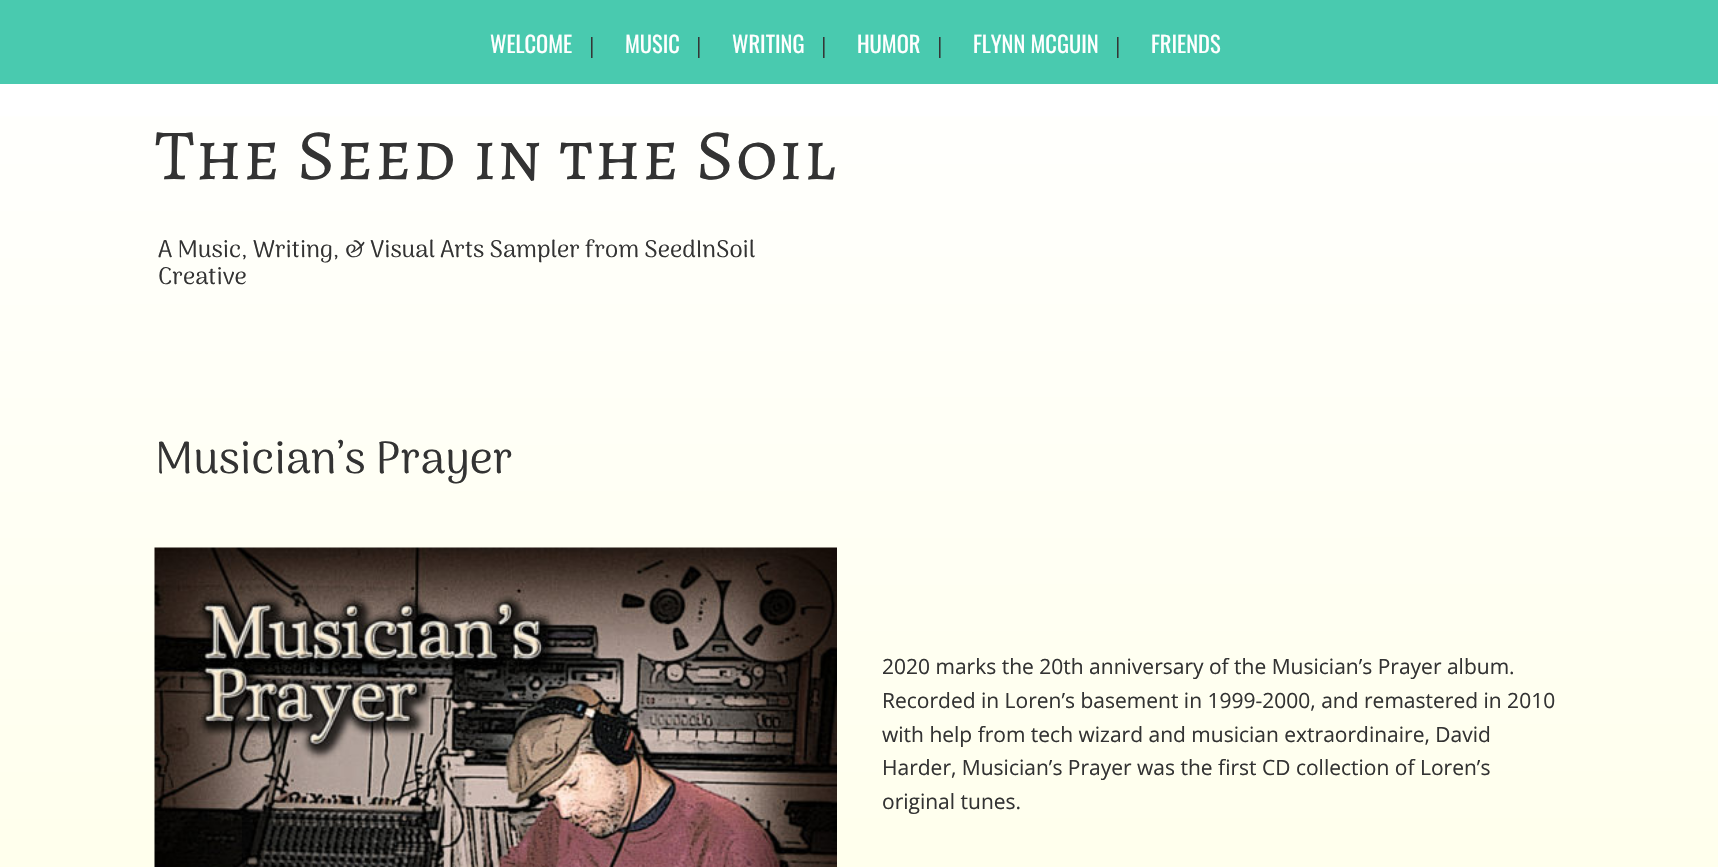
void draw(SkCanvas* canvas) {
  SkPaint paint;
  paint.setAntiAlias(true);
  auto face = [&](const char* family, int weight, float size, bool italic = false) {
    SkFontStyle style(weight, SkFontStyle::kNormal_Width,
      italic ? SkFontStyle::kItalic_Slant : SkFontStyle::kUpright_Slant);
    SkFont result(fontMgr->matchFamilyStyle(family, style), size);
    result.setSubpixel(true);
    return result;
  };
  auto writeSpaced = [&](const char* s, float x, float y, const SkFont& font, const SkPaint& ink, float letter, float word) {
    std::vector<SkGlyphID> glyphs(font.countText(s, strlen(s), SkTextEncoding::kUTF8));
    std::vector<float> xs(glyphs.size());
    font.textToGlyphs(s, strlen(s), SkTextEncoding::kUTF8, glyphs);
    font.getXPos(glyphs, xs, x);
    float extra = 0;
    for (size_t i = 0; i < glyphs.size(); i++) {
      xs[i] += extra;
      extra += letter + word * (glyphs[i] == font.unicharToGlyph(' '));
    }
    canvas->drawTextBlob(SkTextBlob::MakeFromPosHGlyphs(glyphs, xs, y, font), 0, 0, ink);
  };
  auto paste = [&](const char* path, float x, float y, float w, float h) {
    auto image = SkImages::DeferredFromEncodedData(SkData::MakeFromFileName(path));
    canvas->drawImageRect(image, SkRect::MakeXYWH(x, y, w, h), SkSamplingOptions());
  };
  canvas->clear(0xffffffff);
  paint.setColor(0xff49caaf);
  canvas->drawRect(SkRect::MakeXYWH(0, 0, 1718, 84), paint);
  {
    const SkColor colors[] = {0xffffffff, 0xffffffec};
    const float stops[] = {0, 0.6f};
    const SkPoint ends[] = {{859, 0}, {860, 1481}};
    paint.setShader(SkGradientShader::MakeLinear(ends, colors, stops, 2, SkTileMode::kClamp));
    paint.setAlpha(255);
  }
  canvas->drawRect(SkRect::MakeXYWH(0, 116, 1718, 751), paint);
  paste("img/1.png", 154, 547, 683, 320);
  auto f0 = face("Oswald", 400, 22.5f);
  paint.setShader(nullptr);
  paint.setColor(0xffffffff);
  canvas->drawString("WELCOME", 490, 53, f0, paint);
  auto f1 = face("Open Sans", 400, 21);
  paint.setColor(0xff333333);
  canvas->drawString("|", 586, 53, f1, paint);
  paint.setColor(0xffffffff);
  canvas->drawString("MUSIC", 625, 53, f0, paint);
  paint.setColor(0xff333333);
  canvas->drawString("|", 693, 53, f1, paint);
  paint.setColor(0xffffffff);
  canvas->drawString("WRITING", 732, 53, f0, paint);
  paint.setColor(0xff333333);
  canvas->drawString("|", 818, 53, f1, paint);
  paint.setColor(0xffffffff);
  canvas->drawString("HUMOR", 857, 53, f0, paint);
  paint.setColor(0xff333333);
  canvas->drawString("|", 934, 53, f1, paint);
  paint.setColor(0xffffffff);
  canvas->drawString("FLYNN MCGUIN", 973, 53, f0, paint);
  paint.setColor(0xff333333);
  canvas->drawString("|", 1112, 53, f1, paint);
  paint.setColor(0xffffffff);
  canvas->drawString("FRIENDS", 1151, 53, f0, paint);
  auto f2 = face("Alegreya SC", 400, 72);
  paint.setColor(0xff333333);
  writeSpaced("The Seed in the Soil", 155, 179, f2, paint, 1.5f, 0);
  auto f3 = face("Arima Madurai", 400, 24);
  canvas->drawString("A Music, Writing, & Visual Arts Sampler from SeedInSoil", 158, 257, f3, paint);
  canvas->drawString("Creative", 158, 284, f3, paint);
  auto f4 = face("Arima Madurai", 400, 45);
  canvas->drawString("Musician’s Prayer", 155, 473, f4, paint);
  {
    const struct { const char* s; float x, y; } items[] = {
      {"2020 marks the 20th anniversary of the Musician’s Prayer album.", 882, 674},
      {"Recorded in Loren’s basement in 1999-2000, and remastered in 2010", 882, 708},
      {"with help from tech wizard and musician extraordinaire, David", 882, 742},
      {"Harder, Musician’s Prayer was the first CD collection of Loren’s", 882, 775},
      {"original tunes.", 882, 809},
    };
    for (auto [s, x, y] : items) {
      canvas->drawString(s, x, y, f1, paint);
    }
  }
}
